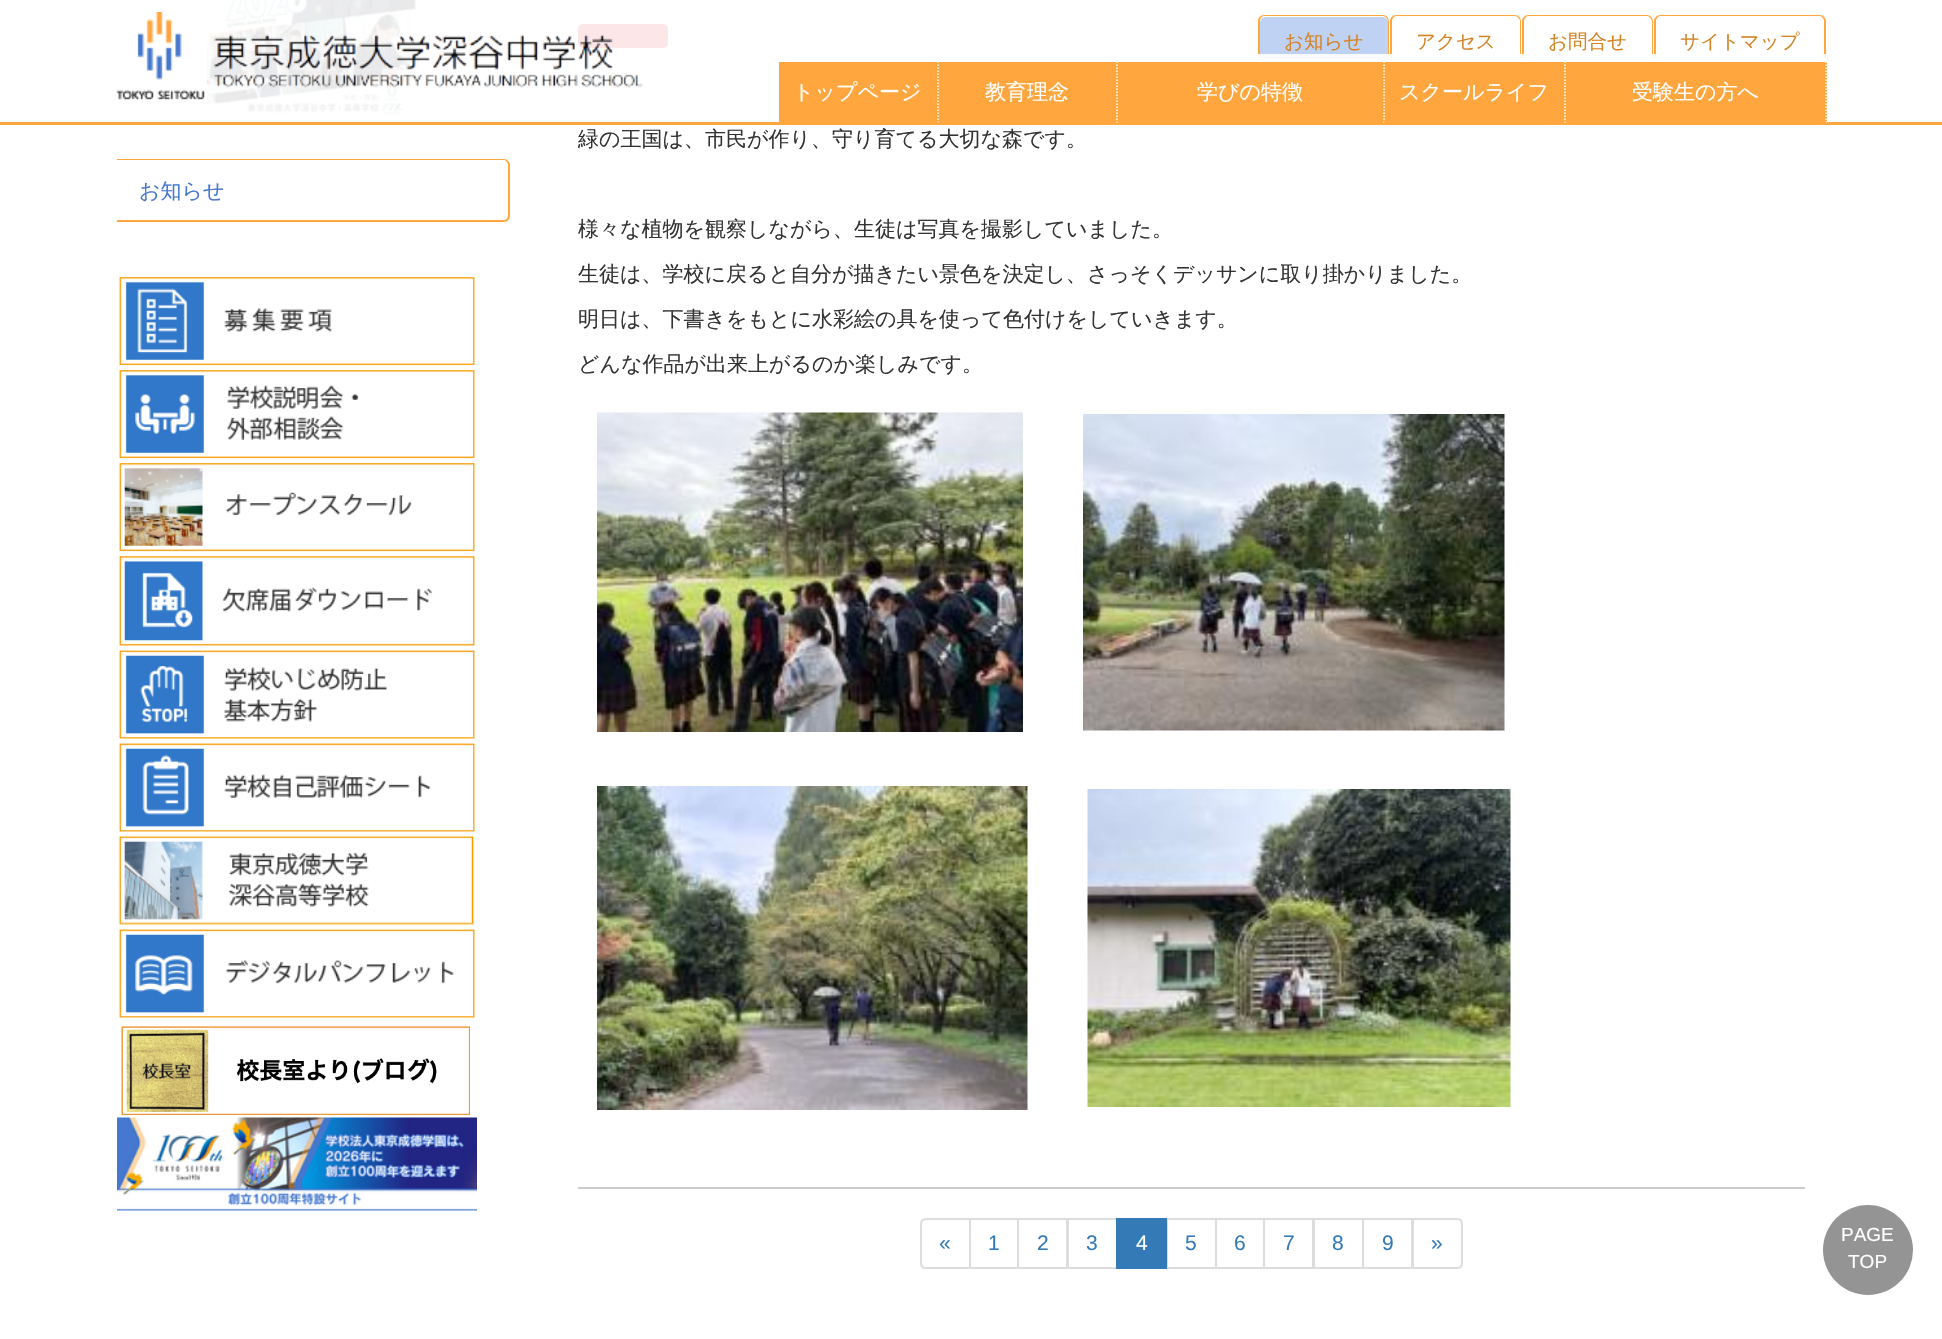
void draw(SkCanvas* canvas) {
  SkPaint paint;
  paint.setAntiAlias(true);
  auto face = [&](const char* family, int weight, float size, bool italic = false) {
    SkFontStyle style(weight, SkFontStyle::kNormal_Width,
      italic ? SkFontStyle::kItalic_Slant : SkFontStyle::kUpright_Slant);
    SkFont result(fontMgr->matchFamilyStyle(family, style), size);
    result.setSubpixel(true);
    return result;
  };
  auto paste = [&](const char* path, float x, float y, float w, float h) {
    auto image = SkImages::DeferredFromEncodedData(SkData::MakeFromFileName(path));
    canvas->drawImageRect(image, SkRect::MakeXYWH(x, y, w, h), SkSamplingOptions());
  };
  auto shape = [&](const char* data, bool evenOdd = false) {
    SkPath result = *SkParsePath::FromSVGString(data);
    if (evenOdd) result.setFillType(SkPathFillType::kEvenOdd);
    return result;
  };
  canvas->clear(0xffffffff);
  paste("img/2.png", 207, 0, 212, 122);
  paint.setColor(0xffe60012);
  canvas->drawRoundRect(SkRect::MakeXYWH(578, 24, 90, 24), 5, 5, paint);
  paint.setColor(0xe6ffffff);
  canvas->drawRect(SkRect::MakeXYWH(207, 0, 461, 54), paint);
  paint.setColor(0xffffa73e);
  canvas->drawPath(shape("M1264 15H1383C1386 15 1389 18 1389 21V58H1258V21C1258 18 1261 15 1264 15ZM1264 16H1383C1385 16 1388 19 1388 21V58H1260V21C1260 19 1262 16 1264 16Z", true), paint);
  paint.setColor(0xffbfd2f3);
  canvas->drawPath(shape("M1266 17H1382C1385.5 17 1388 19.5 1388 23V59H1260V23C1260 19.5 1262.5 17 1266 17Z"), paint);
  paint.setColor(0xffffa73e);
  canvas->drawPath(shape("M1396 15H1515C1518 15 1521 18 1521 21V58H1390V21C1390 18 1393 15 1396 15ZM1396 16H1515C1517 16 1520 19 1520 21V58H1392V21C1392 19 1394 16 1396 16Z", true), paint);
  canvas->drawPath(shape("M1528 15H1647C1650 15 1653 18 1653 21V58H1522V21C1522 18 1525 15 1528 15ZM1528 16H1647C1649 16 1652 19 1652 21V58H1524V21C1524 19 1526 16 1528 16Z", true), paint);
  canvas->drawPath(shape("M1660 15H1820C1823 15 1826 18 1826 21V58H1654V21C1654 18 1657 15 1660 15ZM1660 16H1820C1822 16 1824 19 1824 21V58H1656V21C1656 19 1658 16 1660 16Z", true), paint);
  paint.setColor(0xe6ffffff);
  canvas->drawRect(SkRect::MakeXYWH(207, 54, 1619, 68), paint);
  paste("img/1.png", 116, 12, 527, 88);
  paint.setColor(0xffffa73e);
  canvas->drawRect(SkRect::MakeXYWH(0, 122, 1942, 3), paint);
  canvas->drawRect(SkRect::MakeXYWH(779, 62, 1048, 60), paint);
  paint.setStroke(true);
  paint.setStrokeWidth(1.5f);
  paint.setColor(0xffffffff);
  paint.setPathEffect(SkDashPathEffect::Make({{1.5f, 1.5f}}, 0));
  canvas->drawPath(shape("M938 61.5V124.5"), paint);
  paint.setPathEffect(nullptr);
  paint.setStroke(false);
  paint.setColor(0xffffa73e);
  canvas->drawPath(shape("M939 124H778V122H938Z"), paint);
  paint.setStroke(true);
  paint.setColor(0xffffffff);
  paint.setPathEffect(SkDashPathEffect::Make({{1.5f, 1.5f}}, 0));
  canvas->drawPath(shape("M1117 61.5V124.5"), paint);
  paint.setPathEffect(nullptr);
  paint.setStroke(false);
  paint.setColor(0xffffa73e);
  canvas->drawPath(shape("M1118 124H939V122H1116Z"), paint);
  paint.setStroke(true);
  paint.setColor(0xffffffff);
  paint.setPathEffect(SkDashPathEffect::Make({{1.5f, 1.5f}}, 0));
  canvas->drawPath(shape("M1384 61.5V124.5"), paint);
  paint.setPathEffect(nullptr);
  paint.setStroke(false);
  paint.setColor(0xffffa73e);
  canvas->drawPath(shape("M1384 124H1118V122H1383Z"), paint);
  paint.setStroke(true);
  paint.setColor(0xffffffff);
  paint.setPathEffect(SkDashPathEffect::Make({{1.5f, 1.5f}}, 0));
  canvas->drawPath(shape("M1565 61.5V124.5"), paint);
  paint.setPathEffect(nullptr);
  paint.setStroke(false);
  paint.setColor(0xffffa73e);
  canvas->drawPath(shape("M1566 124H1384V122H1564Z"), paint);
  paint.setStroke(true);
  paint.setColor(0xffffffff);
  paint.setPathEffect(SkDashPathEffect::Make({{1.5f, 1.5f}}, 0));
  canvas->drawPath(shape("M1826 61.5V124.5"), paint);
  paint.setPathEffect(nullptr);
  paint.setStroke(false);
  paint.setColor(0xffffa73e);
  canvas->drawPath(shape("M1827 124H1566V122H1826Z"), paint);
  canvas->drawPath(shape("M117 159H504C507 159 510 162 510 165V216C510 219 507 222 504 222H117ZM117 160H504C506 160 508 163 508 165V216C508 218 506 220 504 220H117Z", true), paint);
  paste("img/3.png", 119, 277, 356, 89);
  paste("img/4.png", 119, 370, 356, 89);
  paste("img/5.png", 119, 463, 356, 89);
  paste("img/6.png", 119, 556, 356, 90);
  paste("img/7.png", 119, 650, 356, 89);
  paste("img/8.png", 119, 743, 356, 89);
  paste("img/9.png", 118, 835, 357, 90);
  paste("img/10.png", 119, 929, 356, 89);
  paste("img/11.png", 121, 1026, 349, 89);
  paste("img/12.png", 117, 1117, 360, 94);
  paint.setColor(0xffcccccc);
  canvas->drawRect(SkRect::MakeXYWH(578, 1187, 1227, 2), paint);
  paste("img/13.png", 597, 412, 426, 320);
  paste("img/14.png", 1083, 414, 422, 317);
  paste("img/15.png", 597, 786, 431, 324);
  paste("img/16.png", 1087, 789, 424, 318);
  paint.setStroke(true);
  paint.setStrokeWidth(2);
  paint.setColor(0xffdddddd);
  canvas->drawPath(shape("M926 1219H970V1268H926C923 1268 921 1266 921 1263V1224C921 1221 923 1219 926 1219Z"), paint);
  canvas->drawRect(SkRect::MakeXYWH(970, 1219, 48, 49), paint);
  canvas->drawRect(SkRect::MakeXYWH(1018, 1219, 49, 49), paint);
  canvas->drawRect(SkRect::MakeXYWH(1068, 1219, 49, 49), paint);
  canvas->drawRect(SkRect::MakeXYWH(1167, 1219, 49, 49), paint);
  paint.setStroke(false);
  paint.setColor(0xff337ab7);
  canvas->drawRect(SkRect::MakeXYWH(1116, 1218, 51, 51), paint);
  paint.setStroke(true);
  paint.setColor(0xffdddddd);
  canvas->drawRect(SkRect::MakeXYWH(1216, 1219, 48, 49), paint);
  canvas->drawRect(SkRect::MakeXYWH(1264, 1219, 49, 49), paint);
  canvas->drawRect(SkRect::MakeXYWH(1314, 1219, 49, 49), paint);
  canvas->drawRect(SkRect::MakeXYWH(1363, 1219, 49, 49), paint);
  paint.setStroke(false);
  paint.setColor(0xffffffff);
  canvas->drawPath(shape("M1413 1219H1457C1460 1219 1462 1221 1462 1224V1263C1462 1266 1460 1268 1457 1268H1413Z"), paint);
  paint.setStroke(true);
  paint.setColor(0xffdddddd);
  canvas->drawPath(shape("M1413 1219H1457C1460 1219 1462 1221 1462 1224V1263C1462 1266 1460 1268 1457 1268H1413Z"), paint);
  paint.setStroke(false);
  paint.setColor(0xff949494);
  canvas->drawCircle(1868, 1250, 45, paint);
  auto f0 = face("WenQuanYi Zen Hei", 500, 19.5f);
  paint.setColor(0xffd58322);
  {
    const struct { const char* s; float x, y; } items[] = {
      {"お知らせ", 1284, 48},
      {"アクセス", 1416, 48},
      {"お問合せ", 1548, 48},
      {"サイトマップ", 1680, 48},
    };
    for (auto [s, x, y] : items) {
      canvas->drawString(s, x, y, f0, paint);
    }
  }
  auto f1 = face("WenQuanYi Zen Hei", 500, 21);
  paint.setColor(0xffffffff);
  {
    const struct { const char* s; float x, y; } items[] = {
      {"トップページ", 793, 99},
      {"教育理念", 985, 99},
      {"学びの特徴", 1197, 99},
      {"スクールライフ", 1399, 99},
      {"受験生の方へ", 1632, 99},
    };
    for (auto [s, x, y] : items) {
      canvas->drawString(s, x, y, f1, paint);
    }
  }
  paint.setColor(0xff4578ce);
  canvas->drawString("お知らせ", 139, 198, f1, paint);
  paint.setColor(0xff333333);
  {
    const struct { const char* s; float x, y; } items[] = {
      {"緑の王国は、市民が作り、守り育てる大切な森です。", 578, 146},
      {"様々な植物を観察しながら、生徒は写真を撮影していました。", 578, 236},
      {"生徒は、学校に戻ると自分が描きたい景色を決定し、さっそくデッサンに取り掛かりました。", 578, 281},
      {"明日は、下書きをもとに水彩絵の具を使って色付けをしていきます。", 578, 326},
      {"どんな作品が出来上がるのか楽しみです。", 578, 371},
    };
    for (auto [s, x, y] : items) {
      canvas->drawString(s, x, y, f1, paint);
    }
  }
  auto f2 = face("Liberation Sans", 400, 21);
  paint.setColor(0xff337ab7);
  {
    const struct { const char* s; float x, y; } items[] = {
      {"«", 939, 1250},
      {"1", 988, 1250},
      {"2", 1037, 1250},
      {"3", 1086, 1250},
    };
    for (auto [s, x, y] : items) {
      canvas->drawString(s, x, y, f2, paint);
    }
  }
  paint.setColor(0xffffffff);
  canvas->drawString("4", 1136, 1250, f2, paint);
  paint.setColor(0xff337ab7);
  {
    const struct { const char* s; float x, y; } items[] = {
      {"5", 1185, 1250},
      {"6", 1234, 1250},
      {"7", 1283, 1250},
      {"8", 1332, 1250},
      {"9", 1382, 1250},
      {"»", 1431, 1250},
    };
    for (auto [s, x, y] : items) {
      canvas->drawString(s, x, y, f2, paint);
    }
  }
  auto f3 = face("Liberation Sans", 400, 19);
  paint.setColor(0xffffffff);
  canvas->drawString("PAGE", 1841, 1241, f3, paint);
  canvas->drawString("TOP", 1848, 1268, f3, paint);
}
